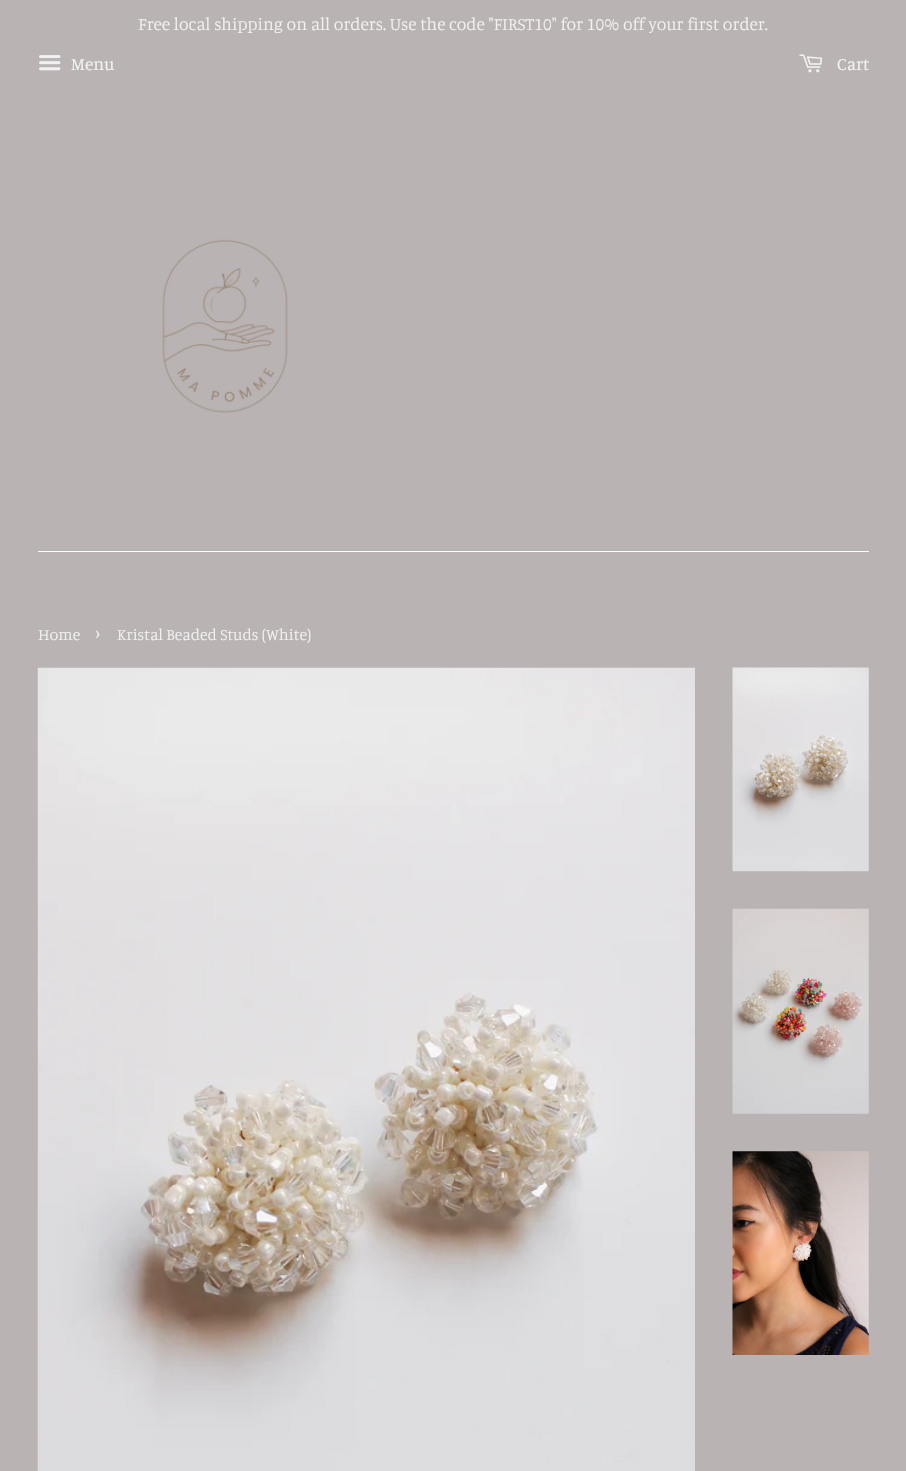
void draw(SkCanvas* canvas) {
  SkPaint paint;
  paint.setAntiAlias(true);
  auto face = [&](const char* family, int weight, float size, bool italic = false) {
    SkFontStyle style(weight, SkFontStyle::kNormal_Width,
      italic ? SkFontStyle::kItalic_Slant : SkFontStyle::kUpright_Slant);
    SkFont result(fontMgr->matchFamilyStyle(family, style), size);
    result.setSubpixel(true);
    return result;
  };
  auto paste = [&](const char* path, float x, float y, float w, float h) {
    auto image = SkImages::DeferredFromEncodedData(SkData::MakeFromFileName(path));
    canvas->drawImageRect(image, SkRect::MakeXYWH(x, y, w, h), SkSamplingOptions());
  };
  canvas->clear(0xffb9b3b3);
  paste("img/1.png", 39, 55, 22, 16);
  paste("img/2.png", 799, 54, 24, 19);
  paint.setColor(0xffffffff);
  canvas->drawRect(SkRect::MakeXYWH(38, 551, 831, 1), paint);
  paste("img/3.png", 162, 239, 126, 174);
  paste("img/4.png", 37, 667, 658, 804);
  paste("img/5.png", 732, 667, 137, 205);
  paste("img/6.png", 732, 908, 137, 206);
  paste("img/7.png", 732, 1151, 137, 204);
  auto f0 = face("Manuale", 300, 17.5f);
  paint.setColor(0xfff1f1f1);
  canvas->drawString("Free local shipping on all orders. Use the code \"FIRST10\" for 10% off your first order.", 138, 30, f0, paint);
  auto f1 = face("Manuale", 400, 17.5f);
  canvas->drawString("Menu", 71, 70, f1, paint);
  canvas->drawString("Cart", 837, 70, f1, paint);
  auto f2 = face("Manuale", 300, 16);
  canvas->drawString("Home", 38, 640, f2, paint);
  auto f3 = face("Manuale", 300, 22);
  canvas->drawString("›", 95, 640, f3, paint);
  canvas->drawString("Kristal Beaded Studs (White)", 117, 640, f2, paint);
}
